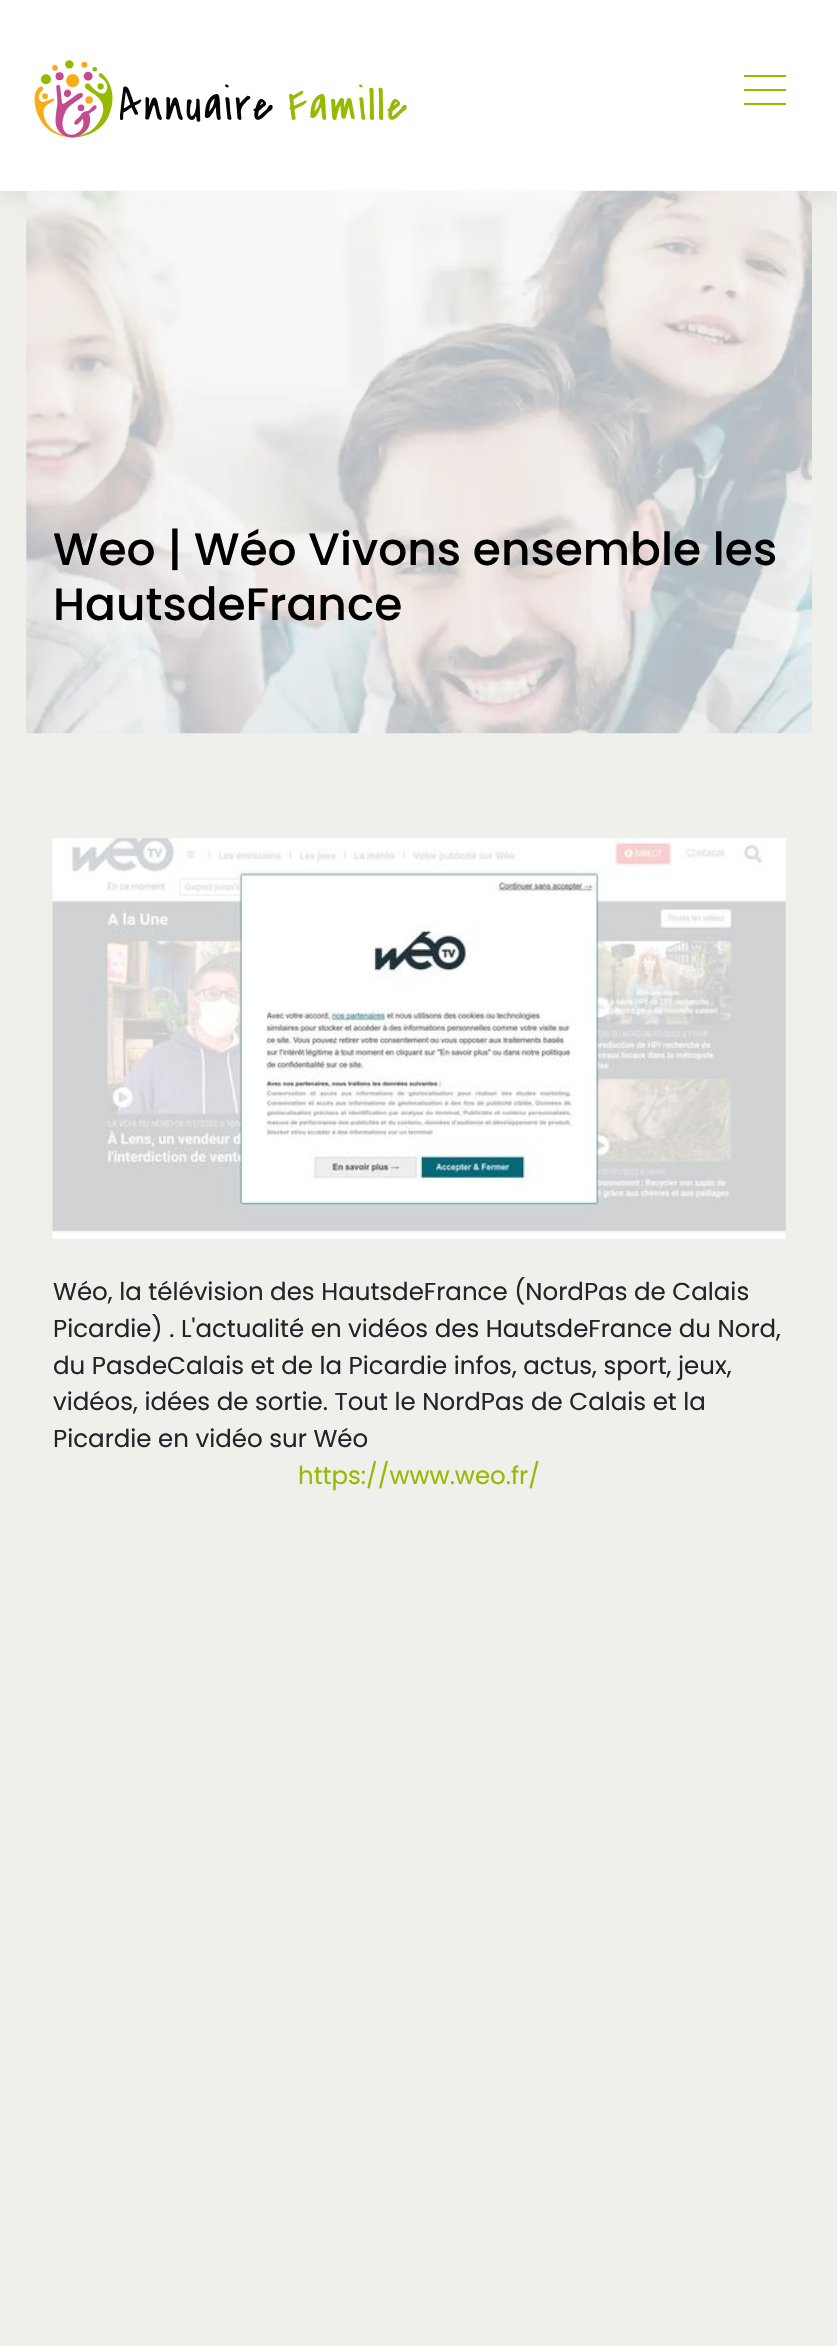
void draw(SkCanvas* canvas) {
  SkPaint paint;
  paint.setAntiAlias(true);
  auto face = [&](const char* family, int weight, float size, bool italic = false) {
    SkFontStyle style(weight, SkFontStyle::kNormal_Width,
      italic ? SkFontStyle::kItalic_Slant : SkFontStyle::kUpright_Slant);
    SkFont result(fontMgr->matchFamilyStyle(family, style), size);
    result.setSubpixel(true);
    return result;
  };
  auto paste = [&](const char* path, float x, float y, float w, float h) {
    auto image = SkImages::DeferredFromEncodedData(SkData::MakeFromFileName(path));
    canvas->drawImageRect(image, SkRect::MakeXYWH(x, y, w, h), SkSamplingOptions());
  };
  canvas->clear(0xffefefeb);
  paint.setColor(0x1a000000);
  paint.setMaskFilter(SkMaskFilter::MakeBlur(kNormal_SkBlurStyle, 11.5f));
  canvas->drawRect(SkRect::MakeXYWH(0, 4, 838, 190), paint);
  paint.setMaskFilter(nullptr);
  paint.setColor(0xffffffff);
  canvas->drawRect(SkRect::MakeXYWH(0, 0, 837, 191), paint);
  paste("img/1.png", 34, 60, 373, 78);
  {
    const struct { float x, y, w, h; SkColor color; } items[] = {
      {744, 75, 42, 2, 0xff95ba01},
      {744, 89, 42, 2, 0xff95ba01},
      {744, 103, 42, 2, 0xff95ba01},
    };
    for (auto [x, y, w, h, color] : items) {
      paint.setColor(color);
      canvas->drawRect(SkRect::MakeXYWH(x, y, w, h), paint);
    }
  }
  paste("img/2.png", 26, 190, 786, 544);
  paste("img/3.png", 52, 838, 734, 401);
  auto f0 = face("Poppins", 500, 45.5f);
  paint.setColor(0xff000000);
  canvas->drawString("Weo | Wéo Vivons ensemble les", 53, 565, f0, paint);
  canvas->drawString("HautsdeFrance", 53, 620, f0, paint);
  auto f1 = face("Poppins", 400, 24.5f);
  paint.setColor(0xff212529);
  {
    const struct { const char* s; float x, y; } items[] = {
      {"Wéo, la télévision des HautsdeFrance (NordPas de Calais", 53, 1300},
      {"Picardie) . L'actualité en vidéos des HautsdeFrance du Nord,", 53, 1337},
      {"du PasdeCalais et de la Picardie infos, actus, sport, jeux,", 53, 1374},
      {"vidéos, idées de sortie. Tout le NordPas de Calais et la", 53, 1410},
      {"Picardie en vidéo sur Wéo", 53, 1447},
    };
    for (auto [s, x, y] : items) {
      canvas->drawString(s, x, y, f1, paint);
    }
  }
  paint.setColor(0xff95ba01);
  canvas->drawString("https://www.weo.fr/", 298, 1484, f1, paint);
}
